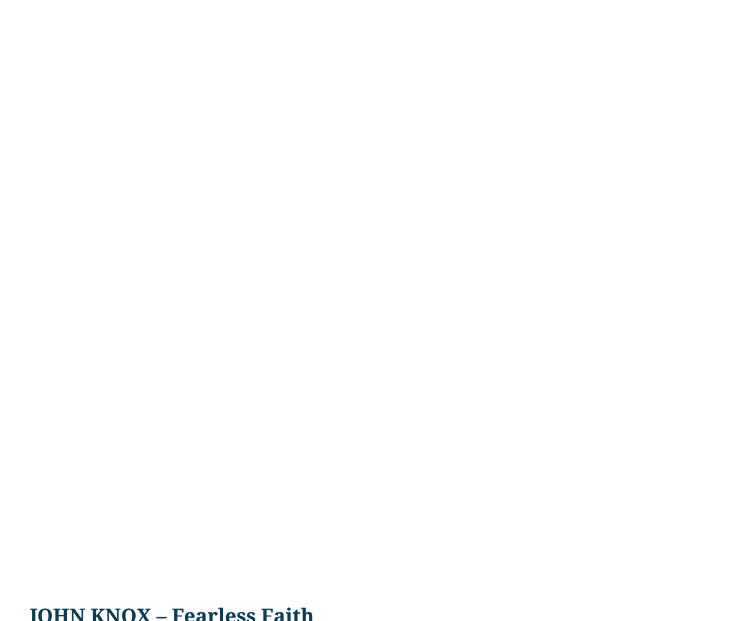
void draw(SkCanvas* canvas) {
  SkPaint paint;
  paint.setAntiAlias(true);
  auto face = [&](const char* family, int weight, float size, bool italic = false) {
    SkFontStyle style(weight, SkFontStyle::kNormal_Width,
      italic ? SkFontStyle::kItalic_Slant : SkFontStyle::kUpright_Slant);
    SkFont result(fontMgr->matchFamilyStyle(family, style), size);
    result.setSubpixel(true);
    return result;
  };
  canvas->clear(0xffffffff);
  auto f0 = face("Droid Serif", 700, 20);
  paint.setColor(0xff0b3c56);
  canvas->drawString("JOHN KNOX – Fearless Faith", 30, 623, f0, paint);
}
